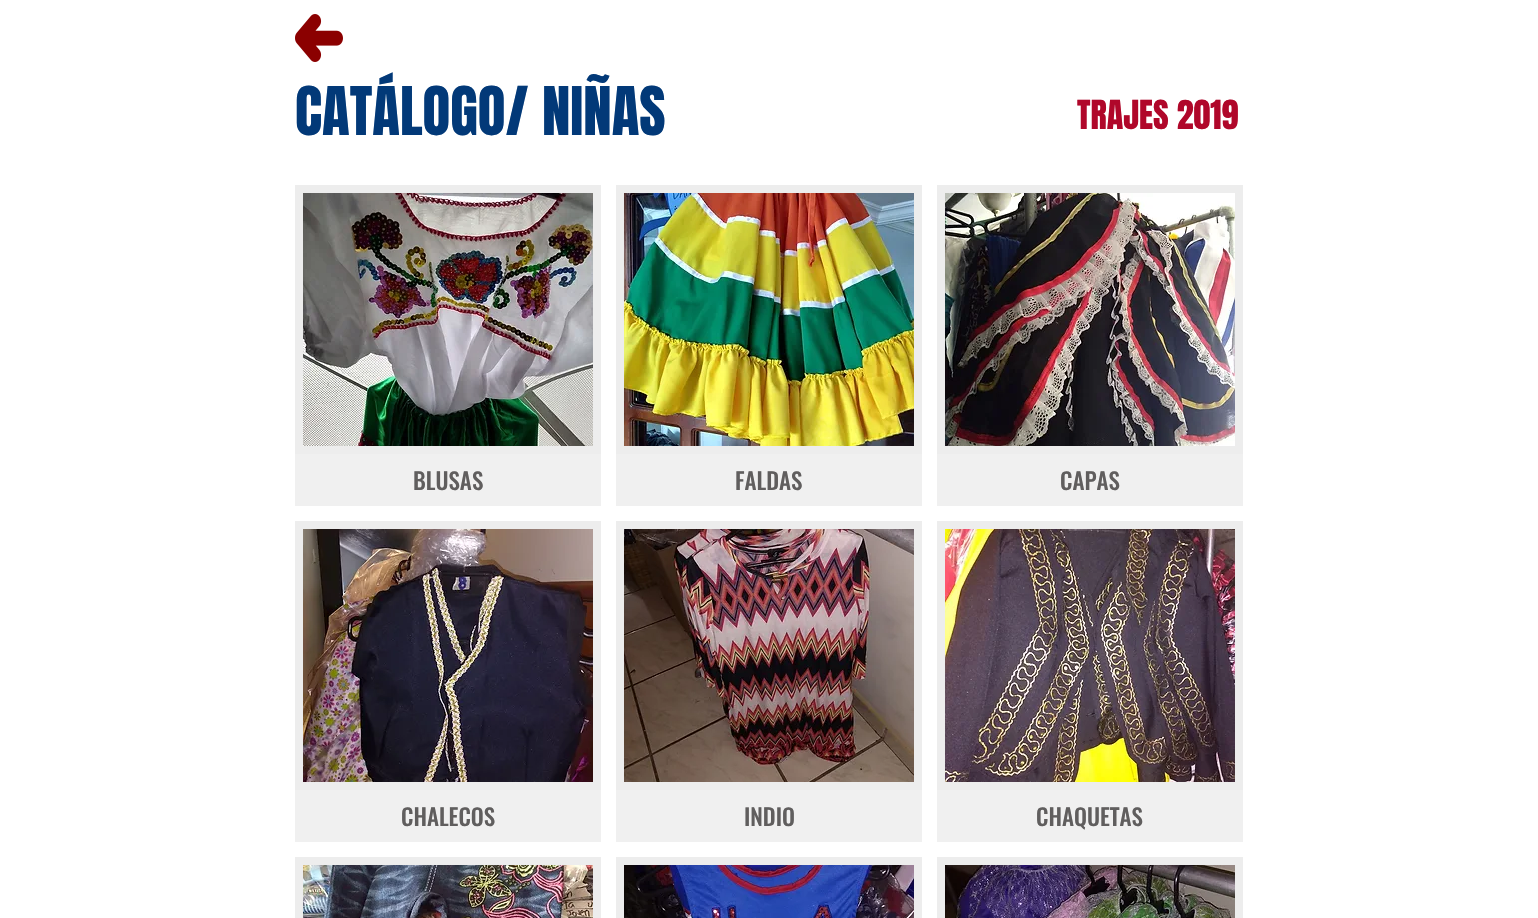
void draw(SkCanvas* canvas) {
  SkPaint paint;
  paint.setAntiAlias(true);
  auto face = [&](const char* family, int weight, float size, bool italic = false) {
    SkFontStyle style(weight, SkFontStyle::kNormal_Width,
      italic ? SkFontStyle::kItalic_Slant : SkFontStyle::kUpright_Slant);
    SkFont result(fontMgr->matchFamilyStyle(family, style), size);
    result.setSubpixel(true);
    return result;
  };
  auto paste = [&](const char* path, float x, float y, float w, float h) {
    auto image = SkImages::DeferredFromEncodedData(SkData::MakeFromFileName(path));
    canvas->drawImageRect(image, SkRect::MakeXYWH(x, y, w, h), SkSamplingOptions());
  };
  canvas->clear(0xffffffff);
  paste("img/1.png", 295, 14, 48, 48);
  paint.setStroke(true);
  paint.setStrokeWidth(8);
  paint.setColor(0xffededed);
  canvas->drawRect(SkRect::MakeXYWH(299, 189, 298, 261), paint);
  paste("img/2.png", 303, 193, 290, 253);
  paint.setStroke(false);
  paint.setColor(0xfff0f0f0);
  canvas->drawRect(SkRect::MakeXYWH(295, 454, 306, 52), paint);
  paint.setStroke(true);
  paint.setColor(0xffededed);
  canvas->drawRect(SkRect::MakeXYWH(620, 189, 298, 261), paint);
  paste("img/3.png", 624, 193, 290, 253);
  paint.setStroke(false);
  paint.setColor(0xfff0f0f0);
  canvas->drawRect(SkRect::MakeXYWH(616, 454, 306, 52), paint);
  paint.setStroke(true);
  paint.setColor(0xffededed);
  canvas->drawRect(SkRect::MakeXYWH(941, 189, 298, 261), paint);
  paste("img/4.png", 945, 193, 290, 253);
  paint.setStroke(false);
  paint.setColor(0xfff0f0f0);
  canvas->drawRect(SkRect::MakeXYWH(937, 454, 306, 52), paint);
  paint.setStroke(true);
  paint.setColor(0xffededed);
  canvas->drawRect(SkRect::MakeXYWH(299, 525, 298, 261), paint);
  paste("img/5.png", 303, 529, 290, 253);
  paint.setStroke(false);
  paint.setColor(0xfff0f0f0);
  canvas->drawRect(SkRect::MakeXYWH(295, 790, 306, 52), paint);
  paint.setStroke(true);
  paint.setColor(0xffededed);
  canvas->drawRect(SkRect::MakeXYWH(620, 525, 298, 261), paint);
  paste("img/6.png", 624, 529, 290, 253);
  paint.setStroke(false);
  paint.setColor(0xfff0f0f0);
  canvas->drawRect(SkRect::MakeXYWH(616, 790, 306, 52), paint);
  paint.setStroke(true);
  paint.setColor(0xffededed);
  canvas->drawRect(SkRect::MakeXYWH(941, 525, 298, 261), paint);
  paste("img/7.png", 945, 529, 290, 253);
  paint.setStroke(false);
  paint.setColor(0xfff0f0f0);
  canvas->drawRect(SkRect::MakeXYWH(937, 790, 306, 52), paint);
  paint.setStroke(true);
  paint.setColor(0xffededed);
  canvas->drawRect(SkRect::MakeXYWH(299, 861, 298, 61), paint);
  paste("img/8.png", 303, 865, 290, 53);
  canvas->drawRect(SkRect::MakeXYWH(620, 861, 298, 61), paint);
  paste("img/9.png", 624, 865, 290, 53);
  canvas->drawRect(SkRect::MakeXYWH(941, 861, 298, 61), paint);
  paste("img/10.png", 945, 865, 290, 53);
  auto f0 = face("Anton", 400, 57);
  paint.setStroke(false);
  paint.setColor(0xff023978);
  canvas->drawString("CATÁLOGO/ NIÑAS", 295, 135, f0, paint);
  auto f1 = face("Anton", 400, 34);
  paint.setColor(0xffb0072a);
  canvas->drawString("TRAJES 2019", 1077, 129, f1, paint);
  auto f2 = face("Oswald", 500, 23);
  paint.setColor(0xff605e5e);
  {
    const struct { const char* s; float x, y; } items[] = {
      {"BLUSAS", 413, 490},
      {"FALDAS", 735, 490},
      {"CAPAS", 1060, 490},
      {"CHALECOS", 401, 826},
      {"INDIO", 744, 826},
      {"CHAQUETAS", 1036, 826},
    };
    for (auto [s, x, y] : items) {
      canvas->drawString(s, x, y, f2, paint);
    }
  }
}
